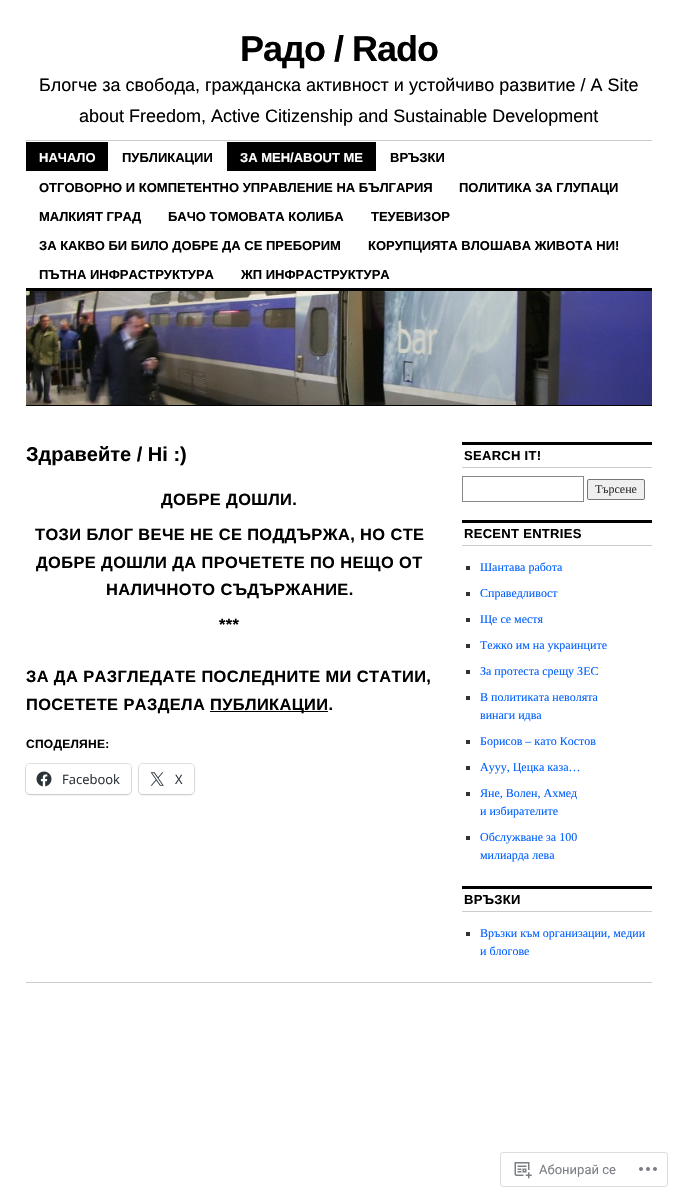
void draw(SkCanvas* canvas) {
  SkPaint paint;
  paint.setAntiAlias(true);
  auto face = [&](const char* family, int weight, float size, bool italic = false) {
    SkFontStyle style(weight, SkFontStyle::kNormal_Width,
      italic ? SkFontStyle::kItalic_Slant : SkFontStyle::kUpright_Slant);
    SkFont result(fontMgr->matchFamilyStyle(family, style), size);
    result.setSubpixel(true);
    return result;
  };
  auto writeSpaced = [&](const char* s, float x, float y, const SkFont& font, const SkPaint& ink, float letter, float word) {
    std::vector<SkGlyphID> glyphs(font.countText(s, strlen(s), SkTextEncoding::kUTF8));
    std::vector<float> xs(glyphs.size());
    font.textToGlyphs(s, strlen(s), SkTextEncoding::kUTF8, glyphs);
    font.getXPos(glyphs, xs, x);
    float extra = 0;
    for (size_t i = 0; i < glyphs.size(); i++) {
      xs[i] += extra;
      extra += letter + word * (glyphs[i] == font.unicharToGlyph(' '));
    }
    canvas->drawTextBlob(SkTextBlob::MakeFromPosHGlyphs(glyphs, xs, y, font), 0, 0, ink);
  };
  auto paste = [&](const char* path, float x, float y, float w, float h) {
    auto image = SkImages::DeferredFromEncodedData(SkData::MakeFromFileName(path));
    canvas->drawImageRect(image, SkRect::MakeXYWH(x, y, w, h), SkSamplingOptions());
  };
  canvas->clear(0xffffffff);
  {
    const struct { float x, y, w, h; SkColor color; } items[] = {
      {26, 140, 626, 1, 0xffcccccc},
      {26, 142, 82, 29, 0xff000000},
      {227, 142, 149, 29, 0xff000000},
      {26, 288, 626, 3, 0xff000000},
    };
    for (auto [x, y, w, h, color] : items) {
      paint.setColor(color);
      canvas->drawRect(SkRect::MakeXYWH(x, y, w, h), paint);
    }
  }
  paste("img/1.png", 26, 291, 626, 114);
  canvas->drawRect(SkRect::MakeXYWH(26, 405, 626, 1), paint);
  canvas->drawRect(SkRect::MakeXYWH(210, 711, 118, 1), paint);
  paint.setStroke(true);
  paint.setStrokeWidth(1);
  paint.setColor(0xffe0e0e0);
  canvas->drawRoundRect(SkRect::MakeXYWH(25.5f, 763.5f, 106, 31), 4.5f, 4.5f, paint);
  paint.setStroke(false);
  paint.setColor(0x1f000000);
  paint.setMaskFilter(SkMaskFilter::MakeBlur(kNormal_SkBlurStyle, 1));
  canvas->drawRoundRect(SkRect::MakeXYWH(26, 765, 105, 30), 4, 4, paint);
  paint.setMaskFilter(nullptr);
  paint.setColor(0xffffffff);
  canvas->drawRoundRect(SkRect::MakeXYWH(26, 764, 105, 30), 4, 4, paint);
  paste("img/2.png", 36, 771, 16, 16);
  paint.setStroke(true);
  paint.setColor(0xffe0e0e0);
  canvas->drawRoundRect(SkRect::MakeXYWH(138.5f, 763.5f, 56, 31), 4.5f, 4.5f, paint);
  paint.setStroke(false);
  paint.setColor(0x1f000000);
  paint.setMaskFilter(SkMaskFilter::MakeBlur(kNormal_SkBlurStyle, 1));
  canvas->drawRoundRect(SkRect::MakeXYWH(139, 765, 55, 30), 4, 4, paint);
  paint.setMaskFilter(nullptr);
  paint.setColor(0xffffffff);
  canvas->drawRoundRect(SkRect::MakeXYWH(139, 764, 55, 30), 4, 4, paint);
  paste("img/3.png", 150, 772, 14, 14);
  paint.setColor(0xff000000);
  canvas->drawRect(SkRect::MakeXYWH(462, 442, 190, 3), paint);
  paint.setColor(0xffcccccc);
  canvas->drawRect(SkRect::MakeXYWH(462, 467, 190, 1), paint);
  paint.setStroke(true);
  paint.setColor(0xff888888);
  canvas->drawRect(SkRect::MakeXYWH(462.5f, 476.5f, 121, 25), paint);
  paint.setStroke(false);
  paint.setColor(0xffefefef);
  canvas->drawRoundRect(SkRect::MakeXYWH(587.5f, 479.5f, 57, 20), 1.5f, 1.5f, paint);
  paint.setStroke(true);
  paint.setColor(0xff767676);
  canvas->drawRoundRect(SkRect::MakeXYWH(587.5f, 479.5f, 57, 20), 1.5f, 1.5f, paint);
  paint.setStroke(false);
  {
    const struct { float x, y, w, h; SkColor color; } items[] = {
      {462, 520, 190, 3, 0xff000000},
      {462, 545, 190, 1, 0xffcccccc},
      {466, 566, 4, 4, 0xff333333},
      {466, 592, 4, 4, 0xff333333},
      {466, 618, 4, 4, 0xff333333},
      {466, 644, 4, 4, 0xff333333},
      {466, 670, 4, 4, 0xff333333},
      {466, 696, 4, 4, 0xff333333},
      {466, 740, 4, 4, 0xff333333},
      {466, 766, 4, 4, 0xff333333},
      {466, 792, 4, 4, 0xff333333},
      {466, 836, 4, 4, 0xff333333},
      {462, 886, 190, 3, 0xff000000},
      {462, 911, 190, 1, 0xffcccccc},
      {466, 932, 4, 4, 0xff333333},
      {26, 982, 626, 1, 0xffcccccc},
    };
    for (auto [x, y, w, h, color] : items) {
      paint.setColor(color);
      canvas->drawRect(SkRect::MakeXYWH(x, y, w, h), paint);
    }
  }
  paint.setStroke(true);
  paint.setColor(0xffdddddf);
  canvas->drawRoundRect(SkRect::MakeXYWH(500.5f, 1152.5f, 167, 34), 2.5f, 2.5f, paint);
  paste("img/4.png", 514, 1162, 18, 17);
  paste("img/5.png", 639, 1167, 18, 4);
  auto f0 = face("Liberation Sans", 700, 36);
  paint.setStroke(false);
  paint.setColor(0xff000000);
  writeSpaced("Радо / Rado", 240, 61, f0, paint, -1, 0);
  auto f1 = face("Liberation Sans", 400, 18);
  canvas->drawString("Блогче за свобода, гражданска активност и устойчиво развитие / A Site", 39, 91, f1, paint);
  canvas->drawString("about Freedom, Active Citizenship and Sustainable Development", 79, 122, f1, paint);
  auto f2 = face("Liberation Sans", 700, 13);
  paint.setColor(0xffffffff);
  canvas->drawString("НАЧАЛО", 39, 162, f2, paint);
  paint.setColor(0xff000000);
  canvas->drawString("ПУБЛИКАЦИИ", 122, 162, f2, paint);
  paint.setColor(0xffffffff);
  canvas->drawString("ЗА МЕН/ABOUT ME", 240, 162, f2, paint);
  paint.setColor(0xff000000);
  {
    const struct { const char* s; float x, y; } items[] = {
      {"ВРЪЗКИ", 390, 162},
      {"ОТГОВОРНО И КОМПЕТЕНТНО УПРАВЛЕНИЕ НА БЪЛГАРИЯ", 39, 192},
      {"ПОЛИТИКА ЗА ГЛУПАЦИ", 459, 192},
      {"МАЛКИЯТ ГРАД", 39, 221},
      {"БАЧО ТОМОВАТА КОЛИБА", 168, 221},
      {"ТЕУЕВИЗОР", 371, 221},
      {"ЗА КАКВО БИ БИЛО ДОБРЕ ДА СЕ ПРЕБОРИМ", 39, 250},
      {"КОРУПЦИЯТА ВЛОШАВА ЖИВОТА НИ!", 368, 250},
      {"ПЪТНА ИНФРАСТРУКТУРА", 39, 279},
      {"ЖП ИНФРАСТРУКТУРА", 241, 279},
    };
    for (auto [s, x, y] : items) {
      canvas->drawString(s, x, y, f2, paint);
    }
  }
  auto f3 = face("Liberation Sans", 700, 20);
  canvas->drawString("Здравейте / Hi :)", 26, 461, f3, paint);
  auto f4 = face("Liberation Sans", 700, 16.4f);
  {
    const struct { const char* s; float x, y; } items[] = {
      {"ДОБРЕ ДОШЛИ.", 161, 505},
      {"ТОЗИ БЛОГ ВЕЧЕ НЕ СЕ ПОДДЪРЖА, НО СТЕ", 35, 540},
      {"ДОБРЕ ДОШЛИ ДА ПРОЧЕТЕТЕ ПО НЕЩО ОТ", 36, 568},
      {"НАЛИЧНОТО СЪДЪРЖАНИЕ.", 106, 595},
      {"***", 219, 630},
      {"ЗА ДА РАЗГЛЕДАТЕ ПОСЛЕДНИТЕ МИ СТАТИИ,", 26, 682},
      {"ПОСЕТЕТЕ РАЗДЕЛА", 26, 710},
      {"ПУБЛИКАЦИИ.", 210, 710},
    };
    for (auto [s, x, y] : items) {
      writeSpaced(s, x, y, f4, paint, 0.4f, 0);
    }
  }
  auto f5 = face("Liberation Sans", 700, 12);
  writeSpaced("СПОДЕЛЯНЕ:", 26, 748, f5, paint, 0.25f, 0);
  auto f6 = face("Open Sans", 400, 13);
  paint.setColor(0xff2c3338);
  canvas->drawString("Facebook", 62, 784, f6, paint);
  canvas->drawString("X", 175, 784, f6, paint);
  paint.setColor(0xff000000);
  writeSpaced("SEARCH IT!", 464, 460, f2, paint, 0.3f, 0);
  auto f7 = face("Liberation Serif", 400, 12);
  paint.setColor(0xff333333);
  canvas->drawString("Търсене", 595, 493, f7, paint);
  paint.setColor(0xff000000);
  writeSpaced("RECENT ENTRIES", 464, 538, f2, paint, 0.3f, 0);
  paint.setColor(0xff0060ff);
  {
    const struct { const char* s; float x, y; } items[] = {
      {"Шантава работа", 480, 571},
      {"Справедливост", 480, 597},
      {"Ще се местя", 480, 623},
      {"Тежко им на украинците", 480, 649},
      {"За протеста срещу ЗЕС", 480, 675},
      {"В политиката неволята", 480, 701},
      {"винаги идва", 480, 719},
      {"Борисов – като Костов", 480, 745},
      {"Аууу, Цецка каза…", 480, 771},
      {"Яне, Волен, Ахмед", 480, 797},
      {"и избирателите", 480, 815},
      {"Обслужване за 100", 480, 841},
      {"милиарда лева", 480, 859},
    };
    for (auto [s, x, y] : items) {
      canvas->drawString(s, x, y, f7, paint);
    }
  }
  paint.setColor(0xff000000);
  writeSpaced("ВРЪЗКИ", 464, 904, f2, paint, 0.3f, 0);
  paint.setColor(0xff0060ff);
  canvas->drawString("Връзки към организации, медии", 480, 937, f7, paint);
  canvas->drawString("и блогове", 480, 955, f7, paint);
  auto f8 = face("Roboto", 400, 13);
  paint.setColor(0xff7b7f85);
  canvas->drawString("Абонирай се", 539, 1174, f8, paint);
}
